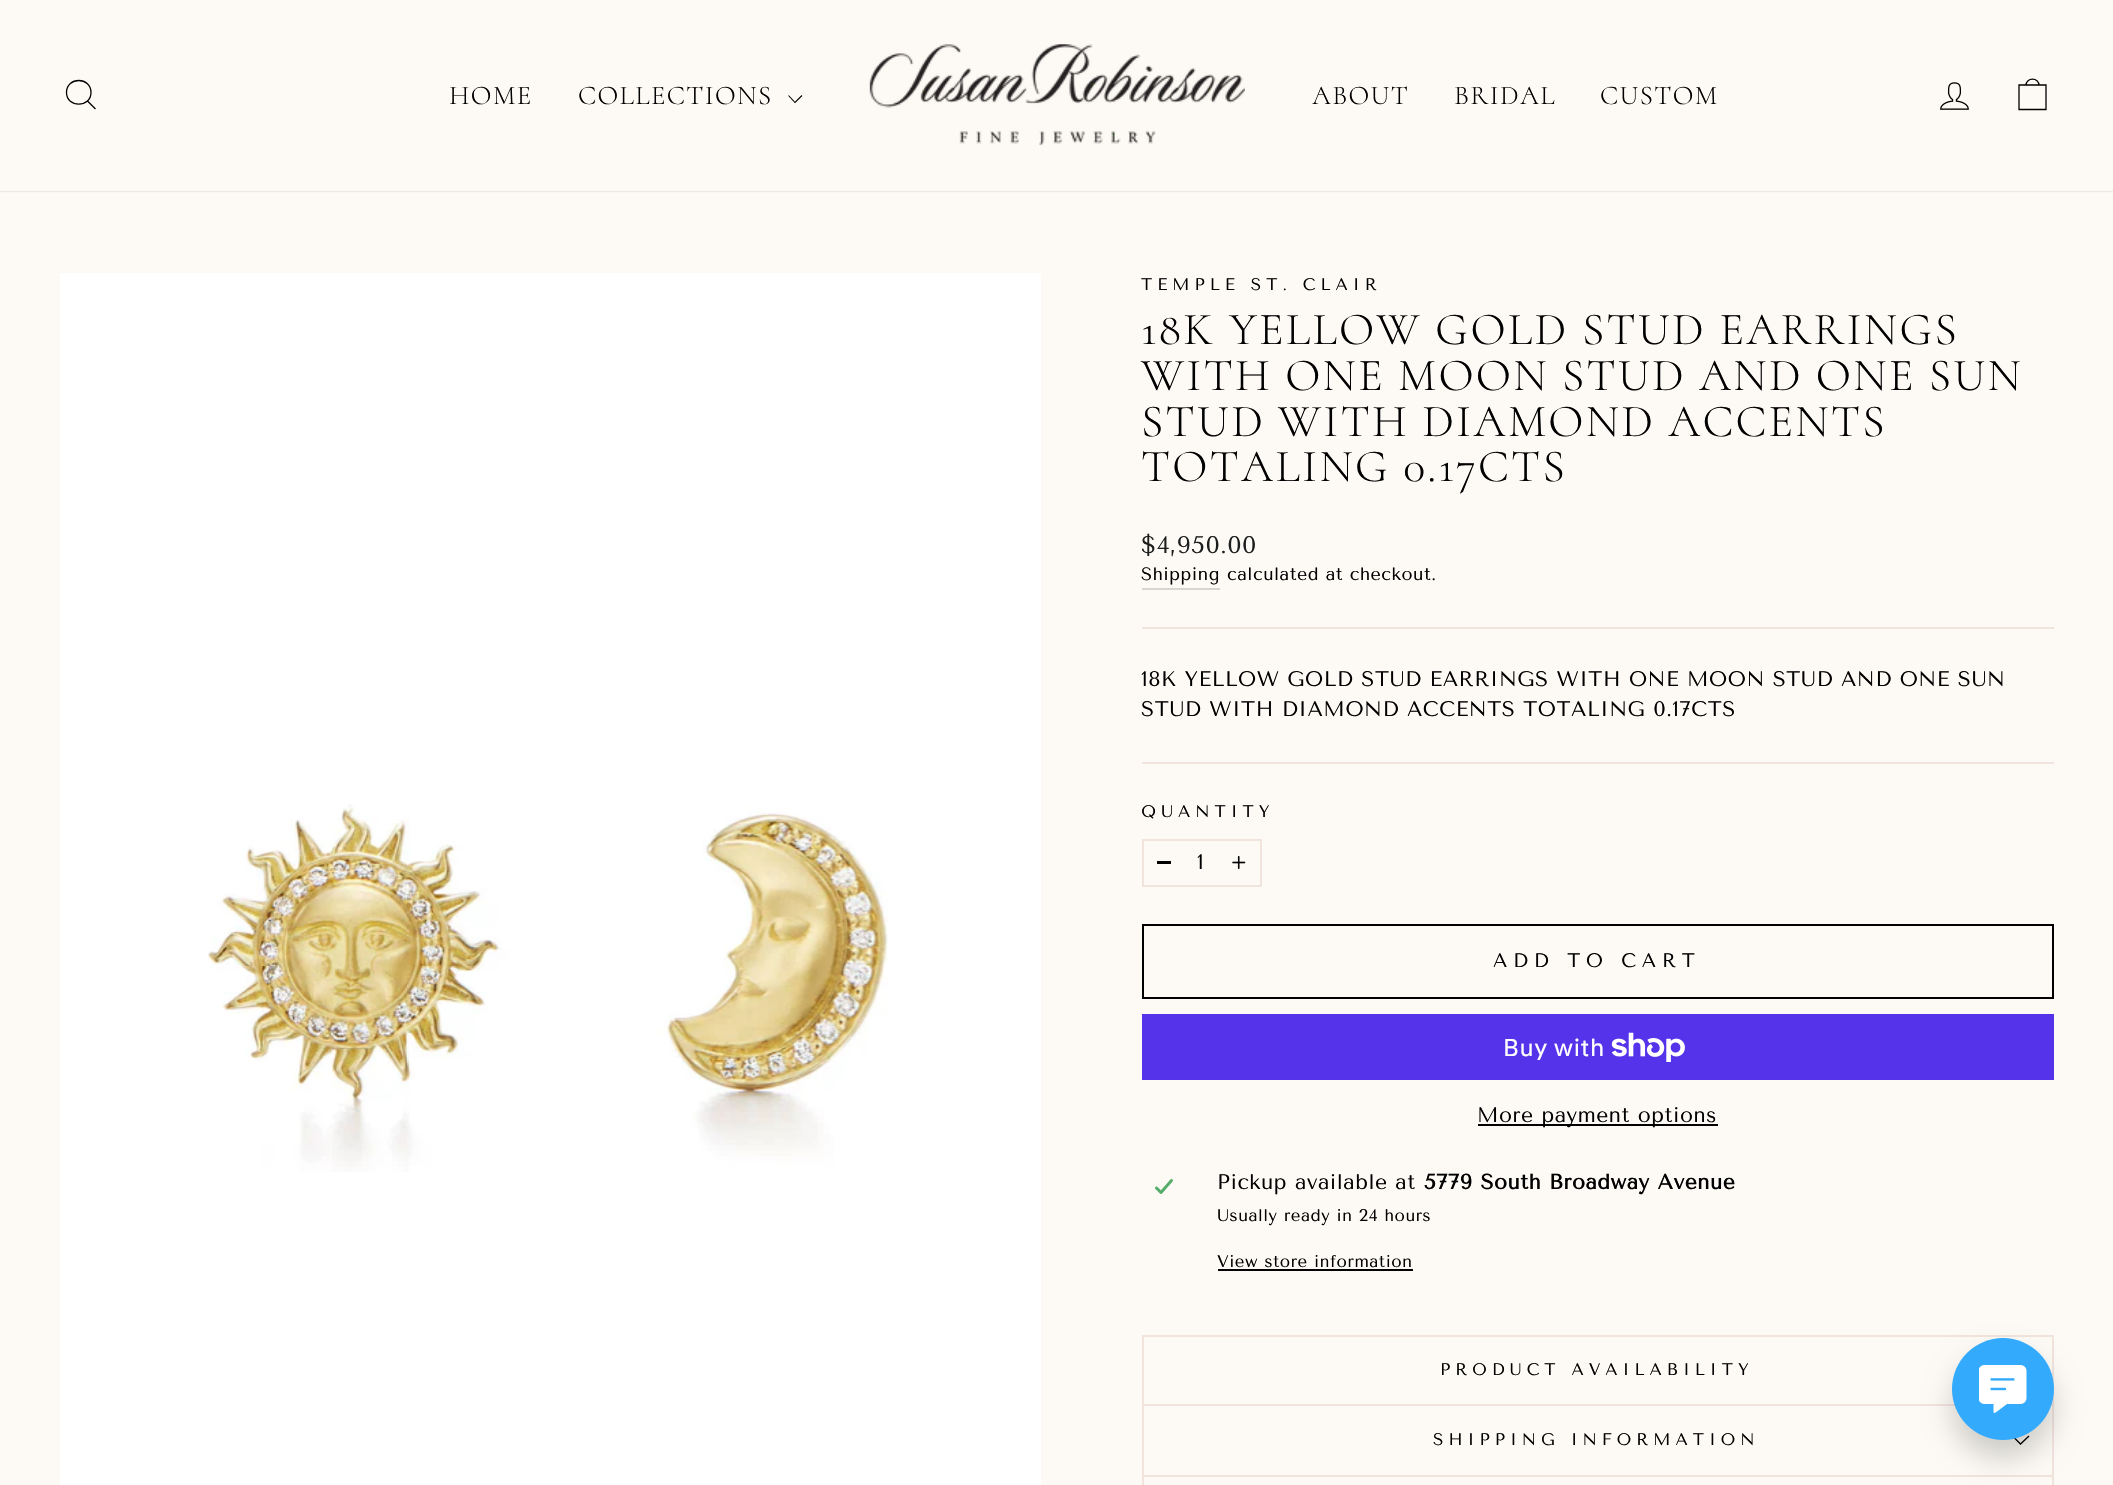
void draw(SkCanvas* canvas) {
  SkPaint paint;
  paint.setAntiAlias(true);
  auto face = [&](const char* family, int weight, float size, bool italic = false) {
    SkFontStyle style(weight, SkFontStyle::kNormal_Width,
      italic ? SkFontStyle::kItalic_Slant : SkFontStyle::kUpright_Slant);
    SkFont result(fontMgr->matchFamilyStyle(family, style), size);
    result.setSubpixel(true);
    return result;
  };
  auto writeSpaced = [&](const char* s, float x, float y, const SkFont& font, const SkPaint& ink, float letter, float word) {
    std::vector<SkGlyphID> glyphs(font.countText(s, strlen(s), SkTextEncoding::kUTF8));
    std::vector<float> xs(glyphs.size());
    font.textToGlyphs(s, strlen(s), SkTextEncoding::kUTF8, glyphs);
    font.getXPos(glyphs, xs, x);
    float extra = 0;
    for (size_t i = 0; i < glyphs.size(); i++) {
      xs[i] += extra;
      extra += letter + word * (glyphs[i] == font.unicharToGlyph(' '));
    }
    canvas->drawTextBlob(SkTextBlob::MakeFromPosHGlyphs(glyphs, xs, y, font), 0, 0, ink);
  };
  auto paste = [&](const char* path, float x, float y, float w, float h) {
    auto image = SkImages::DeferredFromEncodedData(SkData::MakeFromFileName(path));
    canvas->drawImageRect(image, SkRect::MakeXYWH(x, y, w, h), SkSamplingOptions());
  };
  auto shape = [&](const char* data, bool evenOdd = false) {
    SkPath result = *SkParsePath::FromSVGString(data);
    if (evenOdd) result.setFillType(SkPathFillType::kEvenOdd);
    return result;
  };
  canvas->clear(0xfffdfaf5);
  paint.setColor(0x33000000);
  paint.setMaskFilter(SkMaskFilter::MakeBlur(kNormal_SkBlurStyle, 1));
  canvas->drawRect(SkRect::MakeXYWH(0, 0, 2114, 191), paint);
  paint.setMaskFilter(nullptr);
  paint.setColor(0xfffdfaf5);
  canvas->drawRect(SkRect::MakeXYWH(0, 0, 2113, 191), paint);
  paint.setStroke(true);
  paint.setStrokeWidth(1.3f);
  paint.setColor(0xff000000);
  canvas->drawPath(shape("M91 92.5C91 108 66.5 108 66.5 92.5C66.5 76.5 91 76.5 91 92.5ZM95.5 109L87.5 101"), paint);
  paint.setStrokeWidth(1.1f);
  canvas->drawPath(shape("M788.5 95.5L795 102.5L802 95.5"), paint);
  paste("img/1.png", 869, 44, 376, 102);
  paste("img/2.png", 1940, 82, 29, 28);
  paint.setStrokeWidth(1.3f);
  canvas->drawPath(shape("M2019 85H2046V109.5H2019ZM2026 85.5C2026 77 2039 77 2039 85.5"), paint);
  paint.setStroke(false);
  paint.setColor(0xffffffff);
  canvas->drawRect(SkRect::MakeXYWH(60, 273, 981, 1212), paint);
  paste("img/3.png", 208, 804, 680, 368);
  {
    const struct { float x, y, w, h; SkColor color; } items[] = {
      {1142, 588, 78, 2, 0xffd7d5d0},
      {1142, 627, 912, 2, 0xfff1e4dd},
      {1142, 762, 912, 2, 0xfff1e4dd},
    };
    for (auto [x, y, w, h, color] : items) {
      paint.setColor(color);
      canvas->drawRect(SkRect::MakeXYWH(x, y, w, h), paint);
    }
  }
  paint.setStroke(true);
  paint.setStrokeWidth(2);
  canvas->drawRect(SkRect::MakeXYWH(1143, 840, 118, 46), paint);
  paint.setStroke(false);
  paint.setColor(0xff000000);
  canvas->drawRect(SkRect::MakeXYWH(1157, 861, 14, 3), paint);
  paste("img/4.png", 1232, 856, 14, 13);
  paint.setStroke(true);
  canvas->drawRect(SkRect::MakeXYWH(1143, 925, 910, 73), paint);
  paint.setStroke(false);
  paint.setColor(0xff5433eb);
  canvas->drawRect(SkRect::MakeXYWH(1142, 1014, 912, 66), paint);
  paste("img/5.png", 1611, 1032, 74, 30);
  paint.setColor(0xff000000);
  canvas->drawRect(SkRect::MakeXYWH(1478, 1124, 240, 2), paint);
  paste("img/6.png", 1155, 1179, 18, 15);
  {
    const struct { float x, y, w, h; SkColor color; } items[] = {
      {1218, 1269, 195, 2, 0xff000000},
      {1142, 1404, 912, 2, 0xfff1e4dd},
      {1142, 1335, 912, 2, 0xfff1e4dd},
      {2052, 1335, 2, 69, 0xfff1e4dd},
      {1142, 1335, 2, 69, 0xfff1e4dd},
      {1142, 1475, 912, 2, 0xfff1e4dd},
      {2052, 1406, 2, 69, 0xfff1e4dd},
      {1142, 1406, 2, 69, 0xfff1e4dd},
    };
    for (auto [x, y, w, h, color] : items) {
      paint.setColor(color);
      canvas->drawRect(SkRect::MakeXYWH(x, y, w, h), paint);
    }
  }
  paint.setStroke(true);
  paint.setStrokeWidth(1.3f);
  paint.setColor(0xff000000);
  canvas->drawPath(shape("M2012.5 1436L2020.5 1444L2029 1436"), paint);
  paint.setStroke(false);
  paint.setColor(0xfff1e4dd);
  canvas->drawRect(SkRect::MakeXYWH(2052, 1476, 2, 9), paint);
  canvas->drawRect(SkRect::MakeXYWH(1142, 1476, 2, 9), paint);
  paint.setColor(0x2e000000);
  paint.setMaskFilter(SkMaskFilter::MakeBlur(kNormal_SkBlurStyle, 14));
  canvas->drawRoundRect(SkRect::MakeXYWH(1952, 1356, 102, 102), 51, 51, paint);
  paint.setMaskFilter(nullptr);
  paint.setColor(0xff33aafc);
  canvas->drawCircle(2003, 1389, 51, paint);
  paste("img/7.png", 1979, 1365, 48, 48);
  auto f0 = face("Cormorant", 300, 27);
  paint.setColor(0xff000000);
  {
    const struct { const char* s; float x, y; } items[] = {
      {"HOME", 449, 104},
      {"COLLECTIONS", 578, 104},
      {"ABOUT", 1312, 104},
      {"BRIDAL", 1454, 104},
      {"CUSTOM", 1600, 104},
    };
    for (auto [s, x, y] : items) {
      writeSpaced(s, x, y, f0, paint, 1.4f, 0);
    }
  }
  auto f1 = face("Tenor Sans", 400, 16.75f);
  writeSpaced("TEMPLE ST. CLAIR", 1141, 290, f1, paint, 5, 0);
  auto f2 = face("Cormorant", 300, 45.9f);
  writeSpaced("18K YELLOW GOLD STUD EARRINGS", 1141, 344, f2, paint, 2.3f, 0.5f);
  {
    const struct { const char* s; float x, y; } items[] = {
      {"WITH ONE MOON STUD AND ONE SUN", 1141, 390},
      {"STUD WITH DIAMOND ACCENTS", 1141, 436},
      {"TOTALING 0.17CTS", 1141, 481},
    };
    for (auto [s, x, y] : items) {
      writeSpaced(s, x, y, f2, paint, 2.3f, 0);
    }
  }
  auto f3 = face("Tenor Sans", 400, 24);
  paint.setColor(0xff1c1d1d);
  writeSpaced("$4,950.00", 1141, 553, f3, paint, 0.52f, 0);
  auto f4 = face("Tenor Sans", 400, 17.8f);
  paint.setColor(0xff000000);
  writeSpaced("Shipping", 1141, 580, f4, paint, 0.52f, 0);
  writeSpaced("calculated at checkout.", 1227, 580, f4, paint, 0.52f, 0);
  auto f5 = face("Tenor Sans", 400, 21);
  writeSpaced("18K YELLOW GOLD STUD EARRINGS WITH ONE MOON STUD AND ONE SUN", 1141, 686, f5, paint, 0.52f, 0);
  writeSpaced("STUD WITH DIAMOND ACCENTS TOTALING 0.17CTS", 1141, 716, f5, paint, 0.52f, 0);
  writeSpaced("QUANTITY", 1141, 817, f1, paint, 5, 0);
  writeSpaced("1", 1197, 869, f5, paint, 0.52f, 0);
  auto f6 = face("Tenor Sans", 400, 19.5f);
  writeSpaced("ADD TO CART", 1493, 967, f6, paint, 5.8f, 0);
  auto f7 = face("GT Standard", 400, 24);
  paint.setColor(0xffffffff);
  writeSpaced("Buy with", 1503, 1056, f7, paint, 0.52f, 0);
  paint.setColor(0xff000000);
  writeSpaced("More payment options", 1477, 1122, f5, paint, 0.52f, 0);
  writeSpaced("Pickup available at", 1217, 1189, f5, paint, 0.52f, 0);
  auto f8 = face("Tenor Sans", 700, 21);
  writeSpaced("5779 South Broadway Avenue", 1424, 1189, f8, paint, 0.52f, 0);
  writeSpaced("Usually ready in 24 hours", 1217, 1221, f1, paint, 0.52f, 0);
  writeSpaced("View store information", 1217, 1267, f1, paint, 0.52f, 0);
  writeSpaced("PRODUCT AVAILABILITY", 1440, 1375, f1, paint, 5, 0);
  writeSpaced("SHIPPING INFORMATION", 1433, 1445, f1, paint, 5, 0);
}
